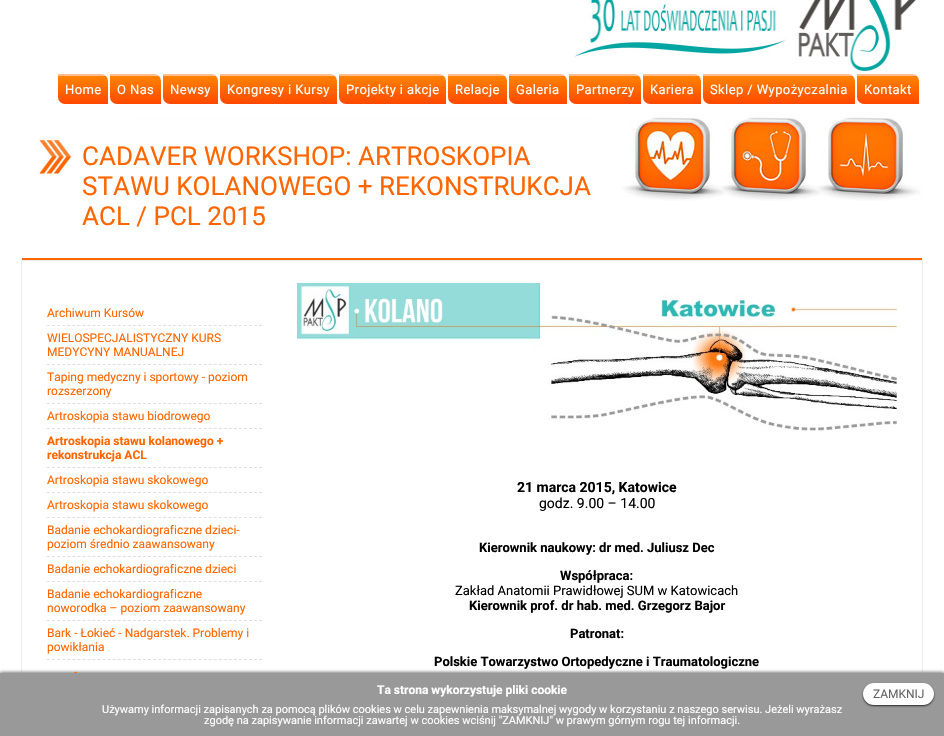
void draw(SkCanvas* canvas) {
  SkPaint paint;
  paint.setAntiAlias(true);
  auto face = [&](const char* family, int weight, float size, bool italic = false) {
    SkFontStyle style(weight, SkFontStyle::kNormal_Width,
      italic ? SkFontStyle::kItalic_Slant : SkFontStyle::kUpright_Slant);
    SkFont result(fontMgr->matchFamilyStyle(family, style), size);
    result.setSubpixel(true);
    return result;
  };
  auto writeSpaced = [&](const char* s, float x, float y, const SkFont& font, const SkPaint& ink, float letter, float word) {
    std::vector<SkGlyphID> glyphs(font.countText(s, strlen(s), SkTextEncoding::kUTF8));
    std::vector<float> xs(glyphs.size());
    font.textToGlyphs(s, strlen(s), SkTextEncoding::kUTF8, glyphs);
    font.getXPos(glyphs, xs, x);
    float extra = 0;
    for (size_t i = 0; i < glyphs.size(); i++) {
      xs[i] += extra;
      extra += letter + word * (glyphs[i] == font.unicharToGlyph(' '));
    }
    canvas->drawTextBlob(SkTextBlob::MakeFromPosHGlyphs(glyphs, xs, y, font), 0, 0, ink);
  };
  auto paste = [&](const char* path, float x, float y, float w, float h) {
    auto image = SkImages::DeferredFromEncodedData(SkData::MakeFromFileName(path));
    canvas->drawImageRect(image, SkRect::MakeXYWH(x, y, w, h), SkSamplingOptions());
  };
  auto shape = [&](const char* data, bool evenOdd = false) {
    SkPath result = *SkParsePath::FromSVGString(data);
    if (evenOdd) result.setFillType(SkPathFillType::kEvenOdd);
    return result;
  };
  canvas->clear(0xffffffff);
  paste("img/1.png", 574, 0, 343, 71);
  paste("img/2.png", 58, 74, 50, 30);
  paste("img/3.png", 110, 74, 51, 30);
  paste("img/4.png", 163, 74, 55, 30);
  paste("img/5.png", 220, 74, 117, 30);
  paste("img/6.png", 339, 74, 107, 30);
  paste("img/7.png", 448, 74, 59, 30);
  paste("img/8.png", 509, 74, 58, 30);
  paste("img/9.png", 569, 74, 72, 30);
  paste("img/8.png", 643, 74, 58, 30);
  paste("img/10.png", 703, 74, 152, 30);
  paste("img/11.png", 857, 74, 62, 30);
  paste("img/12.png", 38, 117, 883, 84);
  paint.setColor(0xffff6600);
  canvas->drawRect(SkRect::MakeXYWH(22, 258, 900, 2), paint);
  paint.setStroke(true);
  paint.setStrokeWidth(1);
  paint.setColor(0xffeeeeee);
  canvas->drawRect(SkRect::MakeXYWH(21.5f, 260.5f, 901, 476), paint);
  paint.setColor(0xffdfe1e0);
  paint.setPathEffect(SkDashPathEffect::Make({{3, 2.05f}}, 0));
  canvas->drawPath(shape("M47 325.5H262"), paint);
  paint.setPathEffect(nullptr);
  paint.setPathEffect(SkDashPathEffect::Make({{3, 2.05f}}, 0));
  canvas->drawPath(shape("M47 364.5H262"), paint);
  paint.setPathEffect(nullptr);
  paint.setPathEffect(SkDashPathEffect::Make({{3, 2.05f}}, 0));
  canvas->drawPath(shape("M47 403.5H262"), paint);
  paint.setPathEffect(nullptr);
  paint.setPathEffect(SkDashPathEffect::Make({{3, 2.05f}}, 0));
  canvas->drawPath(shape("M47 428.5H262"), paint);
  paint.setPathEffect(nullptr);
  paint.setPathEffect(SkDashPathEffect::Make({{3, 2.05f}}, 0));
  canvas->drawPath(shape("M47 467.5H262"), paint);
  paint.setPathEffect(nullptr);
  paint.setPathEffect(SkDashPathEffect::Make({{3, 2.05f}}, 0));
  canvas->drawPath(shape("M47 492.5H262"), paint);
  paint.setPathEffect(nullptr);
  paint.setPathEffect(SkDashPathEffect::Make({{3, 2.05f}}, 0));
  canvas->drawPath(shape("M47 517.5H262"), paint);
  paint.setPathEffect(nullptr);
  paint.setPathEffect(SkDashPathEffect::Make({{3, 2.05f}}, 0));
  canvas->drawPath(shape("M47 556.5H262"), paint);
  paint.setPathEffect(nullptr);
  paint.setPathEffect(SkDashPathEffect::Make({{3, 2.05f}}, 0));
  canvas->drawPath(shape("M47 581.5H262"), paint);
  paint.setPathEffect(nullptr);
  paint.setPathEffect(SkDashPathEffect::Make({{3, 2.05f}}, 0));
  canvas->drawPath(shape("M47 620.5H262"), paint);
  paint.setPathEffect(nullptr);
  paint.setPathEffect(SkDashPathEffect::Make({{3, 2.05f}}, 0));
  canvas->drawPath(shape("M47 659.5H262"), paint);
  paint.setPathEffect(nullptr);
  paste("img/13.png", 297, 283, 600, 148);
  paint.setStroke(false);
  paint.setColor(0x80000000);
  paint.setMaskFilter(SkMaskFilter::MakeBlur(kNormal_SkBlurStyle, 1.5f));
  canvas->drawRect(SkRect::MakeXYWH(0, 672, 944, 63), paint);
  paint.setMaskFilter(nullptr);
  paint.setColor(0xff999999);
  canvas->drawRect(SkRect::MakeXYWH(0, 673, 944, 63), paint);
  paint.setColor(0xbf000000);
  paint.setMaskFilter(SkMaskFilter::MakeBlur(kNormal_SkBlurStyle, 1));
  canvas->drawRoundRect(SkRect::MakeXYWH(863, 684, 71, 22), 11, 11, paint);
  paint.setMaskFilter(nullptr);
  paint.setColor(0xffffffff);
  canvas->drawRoundRect(SkRect::MakeXYWH(863, 683, 71, 22), 11, 11, paint);
  auto f0 = face("Roboto", 400, 13);
  {
    const struct { const char* s; float x, y; } items[] = {
      {"Home", 65, 94},
      {"O Nas", 117, 94},
      {"Newsy", 170, 94},
      {"Kongresy i Kursy", 227, 94},
      {"Projekty i akcje", 346, 94},
      {"Relacje", 455, 94},
      {"Galeria", 516, 94},
      {"Partnerzy", 576, 94},
      {"Kariera", 650, 94},
      {"Sklep / Wypożyczalnia", 710, 94},
      {"Kontakt", 864, 94},
    };
    for (auto [s, x, y] : items) {
      writeSpaced(s, x, y, f0, paint, 0.4f, 0);
    }
  }
  auto f1 = face("Roboto", 400, 26);
  paint.setColor(0xffff6600);
  {
    const struct { const char* s; float x, y; } items[] = {
      {"CADAVER WORKSHOP: ARTROSKOPIA", 82, 165},
      {"STAWU KOLANOWEGO + REKONSTRUKCJA", 82, 195},
      {"ACL / PCL 2015", 82, 225},
    };
    for (auto [s, x, y] : items) {
      canvas->drawString(s, x, y, f1, paint);
    }
  }
  auto f2 = face("Roboto", 400, 12);
  {
    const struct { const char* s; float x, y; } items[] = {
      {"Archiwum Kursów", 47, 317},
      {"WIELOSPECJALISTYCZNY KURS", 47, 342},
      {"MEDYCYNY MANUALNEJ", 47, 356},
      {"Taping medyczny i sportowy - poziom", 47, 381},
      {"rozszerzony", 47, 395},
      {"Artroskopia stawu biodrowego", 47, 420},
    };
    for (auto [s, x, y] : items) {
      canvas->drawString(s, x, y, f2, paint);
    }
  }
  auto f3 = face("Roboto", 700, 12);
  canvas->drawString("Artroskopia stawu kolanowego +", 47, 445, f3, paint);
  canvas->drawString("rekonstrukcja ACL", 47, 459, f3, paint);
  {
    const struct { const char* s; float x, y; } items[] = {
      {"Artroskopia stawu skokowego", 47, 484},
      {"Artroskopia stawu skokowego", 47, 509},
      {"Badanie echokardiograficzne dzieci-", 47, 534},
      {"poziom średnio zaawansowany", 47, 548},
      {"Badanie echokardiograficzne dzieci", 47, 573},
      {"Badanie echokardiograficzne", 47, 598},
      {"noworodka – poziom zaawansowany", 47, 612},
      {"Bark - Łokieć - Nadgarstek. Problemy i", 47, 637},
      {"powikłania", 47, 651},
      {"-", 74, 676},
    };
    for (auto [s, x, y] : items) {
      canvas->drawString(s, x, y, f2, paint);
    }
  }
  auto f4 = face("Roboto", 700, 14);
  paint.setColor(0xff000000);
  canvas->drawString("21 marca 2015, Katowice", 517, 492, f4, paint);
  auto f5 = face("Roboto", 400, 14);
  canvas->drawString("godz. 9.00 – 14.00", 539, 508, f5, paint);
  auto f6 = face("Roboto", 700, 13);
  canvas->drawString("Kierownik naukowy: dr med. Juliusz Dec", 479, 552, f6, paint);
  canvas->drawString("Współpraca:", 560, 580, f6, paint);
  canvas->drawString("Zakład Anatomii Prawidłowej SUM w Katowicach", 455, 595, f0, paint);
  {
    const struct { const char* s; float x, y; } items[] = {
      {"Kierownik prof. dr hab. med. Grzegorz Bajor", 469, 610},
      {"Patronat:", 570, 638},
      {"Polskie Towarzystwo Ortopedyczne i Traumatologiczne", 434, 666},
    };
    for (auto [s, x, y] : items) {
      canvas->drawString(s, x, y, f6, paint);
    }
  }
  paint.setColor(0xffffffff);
  canvas->drawString("Ta strona wykorzystuje pliki cookie", 377, 694, f3, paint);
  paint.setColor(0xff666666);
  canvas->drawString("ZAMKNIJ", 873, 698, f2, paint);
  auto f7 = face("Roboto", 400, 11);
  paint.setColor(0xffffffff);
  canvas->drawString("Używamy informacji zapisanych za pomocą plików cookies w celu zapewnienia maksymalnej wygody w korzystaniu z naszego serwisu. Jeżeli wyrażasz", 102, 713, f7, paint);
  canvas->drawString("zgodę na zapisywanie informacji zawartej w cookies wciśnij \"ZAMKNIJ\" w prawym górnym rogu tej informacji.", 204, 724, f7, paint);
}
